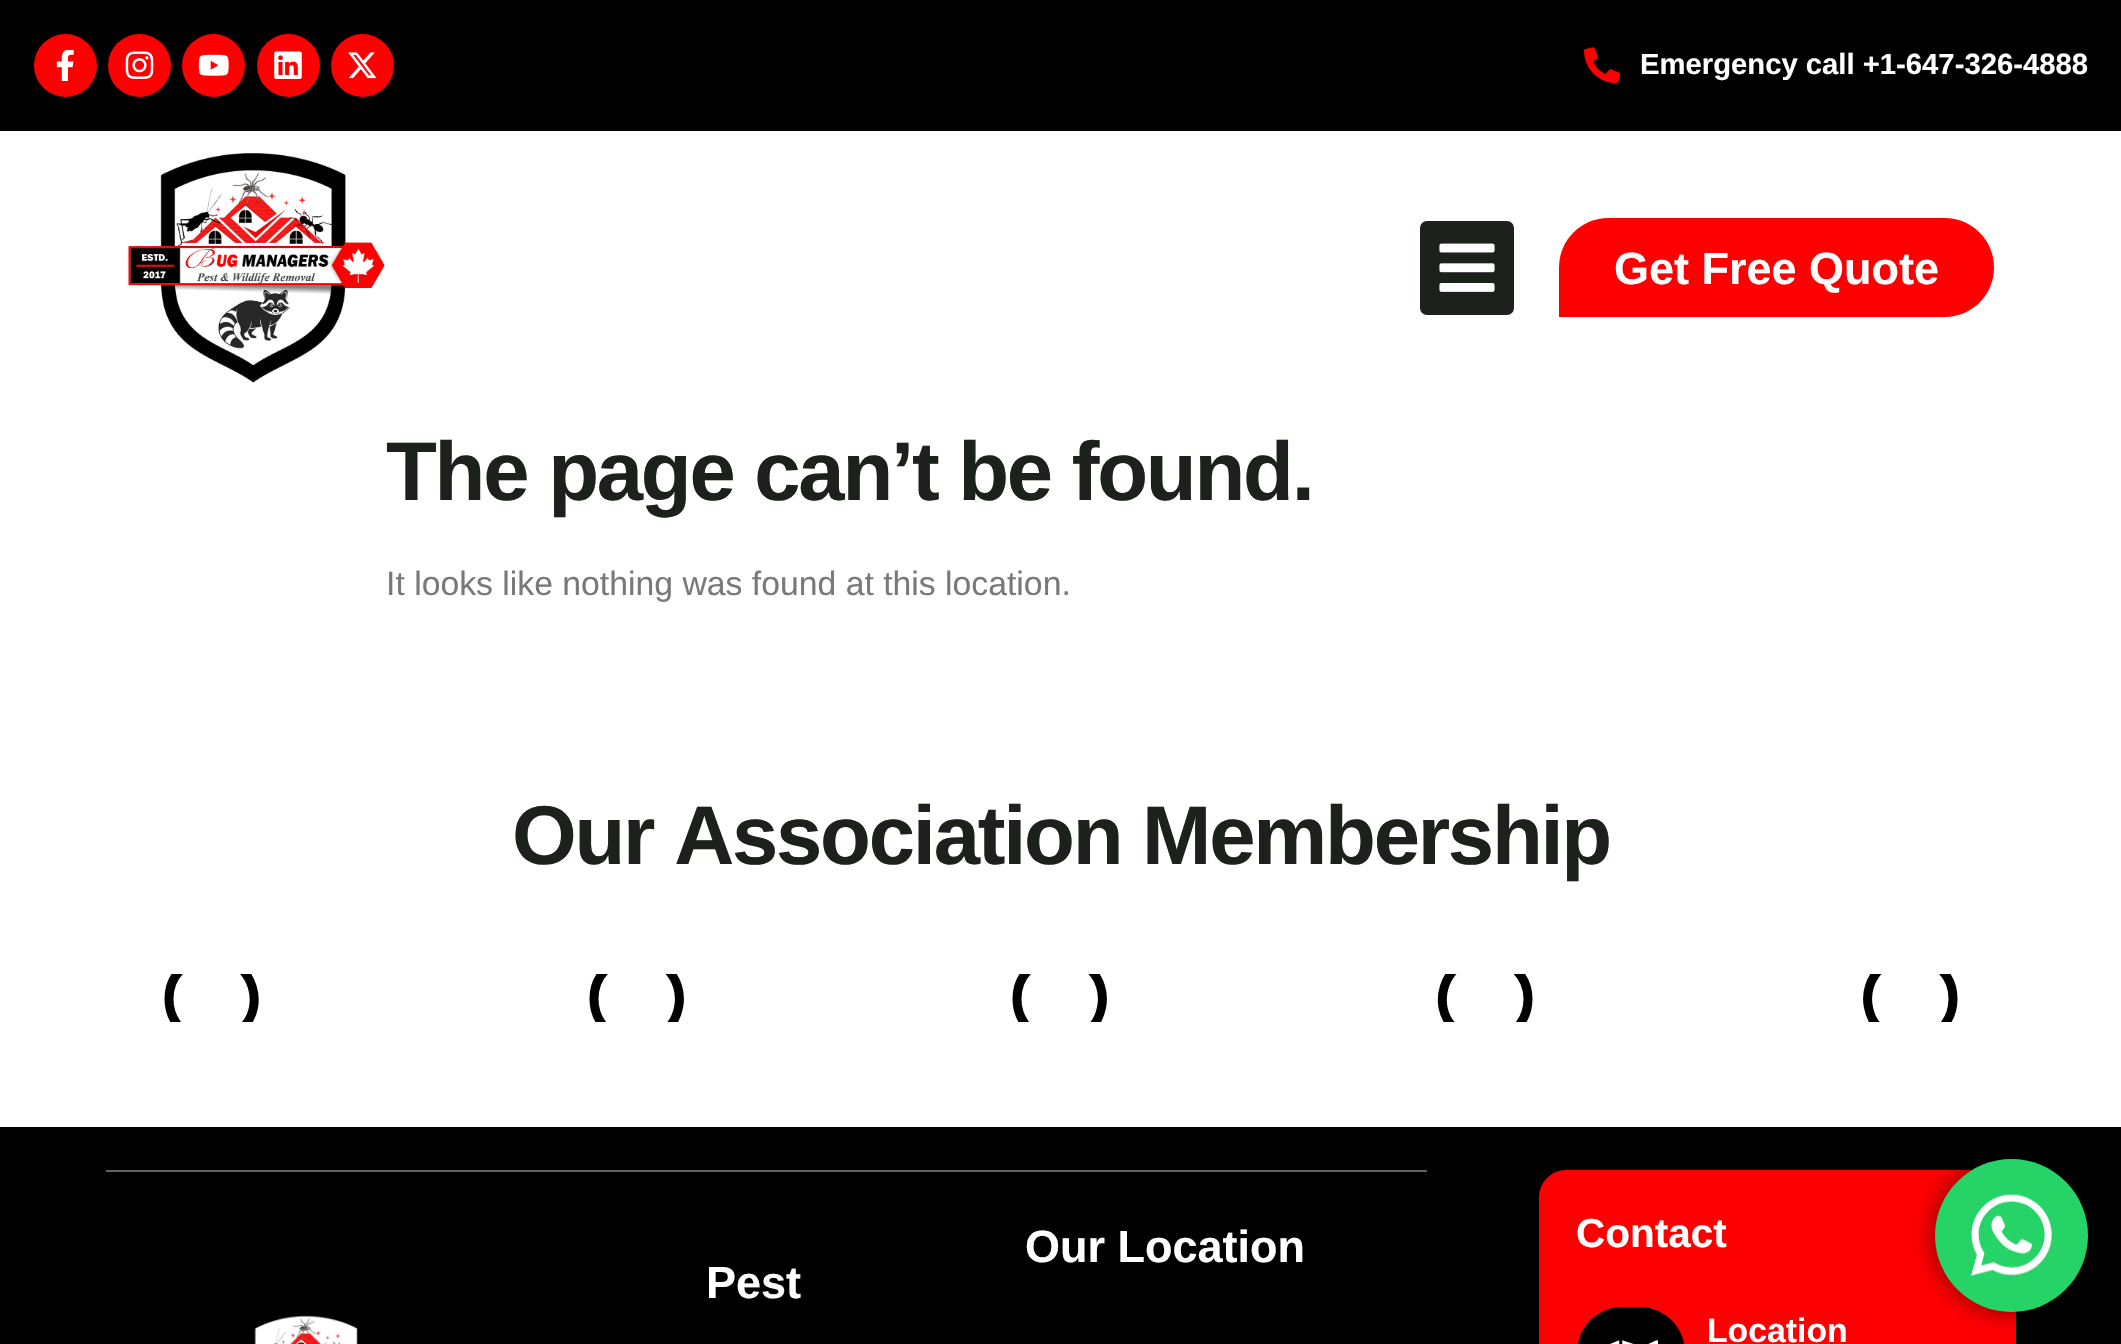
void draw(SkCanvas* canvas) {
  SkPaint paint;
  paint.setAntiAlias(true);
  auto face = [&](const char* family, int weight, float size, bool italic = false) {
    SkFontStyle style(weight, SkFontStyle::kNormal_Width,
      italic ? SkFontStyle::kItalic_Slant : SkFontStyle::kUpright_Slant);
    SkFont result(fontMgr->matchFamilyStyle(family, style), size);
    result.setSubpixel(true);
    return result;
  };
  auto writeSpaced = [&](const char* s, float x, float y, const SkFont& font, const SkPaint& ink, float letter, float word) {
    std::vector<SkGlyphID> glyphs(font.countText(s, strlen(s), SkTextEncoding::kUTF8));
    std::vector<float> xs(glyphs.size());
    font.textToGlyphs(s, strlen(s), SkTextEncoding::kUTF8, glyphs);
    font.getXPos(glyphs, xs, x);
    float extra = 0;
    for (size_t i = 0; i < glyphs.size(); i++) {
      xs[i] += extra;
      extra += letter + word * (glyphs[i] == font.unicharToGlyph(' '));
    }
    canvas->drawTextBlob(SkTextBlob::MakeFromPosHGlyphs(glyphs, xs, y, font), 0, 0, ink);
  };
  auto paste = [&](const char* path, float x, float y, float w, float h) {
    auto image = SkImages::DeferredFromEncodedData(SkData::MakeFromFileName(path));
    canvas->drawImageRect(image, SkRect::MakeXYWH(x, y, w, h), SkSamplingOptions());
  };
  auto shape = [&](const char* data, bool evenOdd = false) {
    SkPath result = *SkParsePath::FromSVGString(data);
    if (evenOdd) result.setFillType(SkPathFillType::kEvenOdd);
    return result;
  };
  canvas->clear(0xffffffff);
  paint.setColor(0xff000000);
  canvas->drawRect(SkRect::MakeXYWH(0, 0, 2121, 131), paint);
  paint.setColor(0xfffe0002);
  canvas->drawCircle(65.5f, 65.5f, 31.5f, paint);
  paste("img/1.png", 56, 50, 18, 31);
  canvas->drawCircle(139.5f, 65.5f, 31.5f, paint);
  paste("img/2.png", 125, 51, 29, 28);
  canvas->drawCircle(213.5f, 65.5f, 31.5f, paint);
  paste("img/3.png", 198, 54, 31, 22);
  canvas->drawCircle(288.5f, 65.5f, 31.5f, paint);
  paste("img/4.png", 274, 51, 28, 28);
  canvas->drawCircle(362.5f, 65.5f, 31.5f, paint);
  paste("img/5.png", 348, 52, 29, 27);
  paste("img/6.png", 1584, 47, 36, 36);
  paste("img/7.png", 128, 153, 257, 230);
  paint.setColor(0xff1d211c);
  canvas->drawRoundRect(SkRect::MakeXYWH(1420, 221, 94, 94), 7, 7, paint);
  paste("img/8.png", 1439, 243, 56, 49);
  paint.setColor(0xfffe0002);
  canvas->drawPath(shape("M1608.5 218H1944.5C1972 218 1994 240 1994 267.5C1994 295 1972 317 1944.5 317H1559V267.5C1559 240 1581 218 1608.5 218Z"), paint);
  canvas->save();
  canvas->clipRect(SkRect::MakeXYWH(0, 974, 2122, 48));
  paint.setStroke(true);
  paint.setStrokeWidth(9);
  paint.setColor(0xff000000);
  canvas->drawPath(shape("M241.5 969C251.5 979 256 993.5 253.5 1007.5C252 1015.5 247.5 1023.5 241.5 1029C215 1056 169 1037 169 999C169 987.5 173.5 976.5 181.5 969"), paint);
  canvas->drawPath(shape("M667 969C677 979 681.5 993.5 678.5 1007.5C677 1015.5 673 1023.5 667 1029C640.5 1056 594 1037 594 999C594 987.5 598.5 976.5 606.5 969"), paint);
  canvas->drawPath(shape("M1090 969C1100 979 1104.5 993.5 1101.5 1007.5C1100 1015.5 1096 1023.5 1090 1029C1063.5 1056 1017 1037 1017 999C1017 987.5 1021.5 976.5 1029.5 969"), paint);
  canvas->drawPath(shape("M1515 969C1523 976.5 1528 987.5 1528 999C1528 1037 1481.5 1056 1455 1029C1449 1023.5 1444.5 1015.5 1443 1007.5C1440.5 993.5 1445 979 1455 969"), paint);
  canvas->drawPath(shape("M1940.5 969C1948.5 976.5 1953 987.5 1953 999C1953 1037 1906.5 1056 1880 1029C1874 1023.5 1870 1015.5 1868.5 1007.5C1865.5 993.5 1870 979 1880 969"), paint);
  canvas->restore();
  paint.setStroke(false);
  canvas->drawRect(SkRect::MakeXYWH(0, 1127, 2121, 217), paint);
  paint.setColor(0xff616161);
  canvas->drawRect(SkRect::MakeXYWH(106, 1170, 1321, 2), paint);
  paste("img/9.png", 254, 1305, 112, 39);
  paint.setColor(0xfffe0002);
  canvas->drawRoundRect(SkRect::MakeXYWH(1539, 1170, 477, 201), 27, 27, paint);
  paint.setColor(0xff000000);
  canvas->drawRoundRect(SkRect::MakeXYWH(1577, 1307, 108, 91), 54, 54, paint);
  paste("img/10.png", 1610, 1340, 48, 4);
  paint.setColor(0x80000000);
  paint.setMaskFilter(SkMaskFilter::MakeBlur(kNormal_SkBlurStyle, 12.5f));
  canvas->drawRoundRect(SkRect::MakeXYWH(1935, 1159, 153, 153), 76.5f, 76.5f, paint);
  paint.setMaskFilter(nullptr);
  paint.setColor(0xff25d366);
  canvas->drawCircle(2011.5f, 1235.5f, 76.5f, paint);
  paste("img/11.png", 1971, 1194, 81, 82);
  auto f0 = face("Liberation Sans", 700, 29.25f);
  paint.setColor(0xffffffff);
  canvas->drawString("Emergency call +1-647-326-4888", 1640, 74, f0, paint);
  auto f1 = face("Liberation Sans", 700, 45);
  canvas->drawString("Get Free Quote", 1614, 284, f1, paint);
  auto f2 = face("Liberation Sans", 700, 83.25f);
  paint.setColor(0xff1d211c);
  writeSpaced("The page can’t be found.", 386, 500, f2, paint, -2.25f, 0);
  auto f3 = face("Liberation Sans", 400, 33.75f);
  paint.setColor(0xff797979);
  canvas->drawString("It looks like nothing was found at this location.", 386, 595, f3, paint);
  paint.setColor(0xff1d211c);
  writeSpaced("Our Association Membership", 512, 864, f2, paint, -2.25f, 0);
  paint.setColor(0xffffffff);
  canvas->drawString("Our Location", 1025, 1262, f1, paint);
  canvas->drawString("Pest", 706, 1298, f1, paint);
  auto f4 = face("Liberation Sans", 700, 40.5f);
  canvas->drawString("Contact", 1576, 1247, f4, paint);
  auto f5 = face("Liberation Sans", 700, 33.75f);
  canvas->drawString("Location", 1707, 1342, f5, paint);
}
